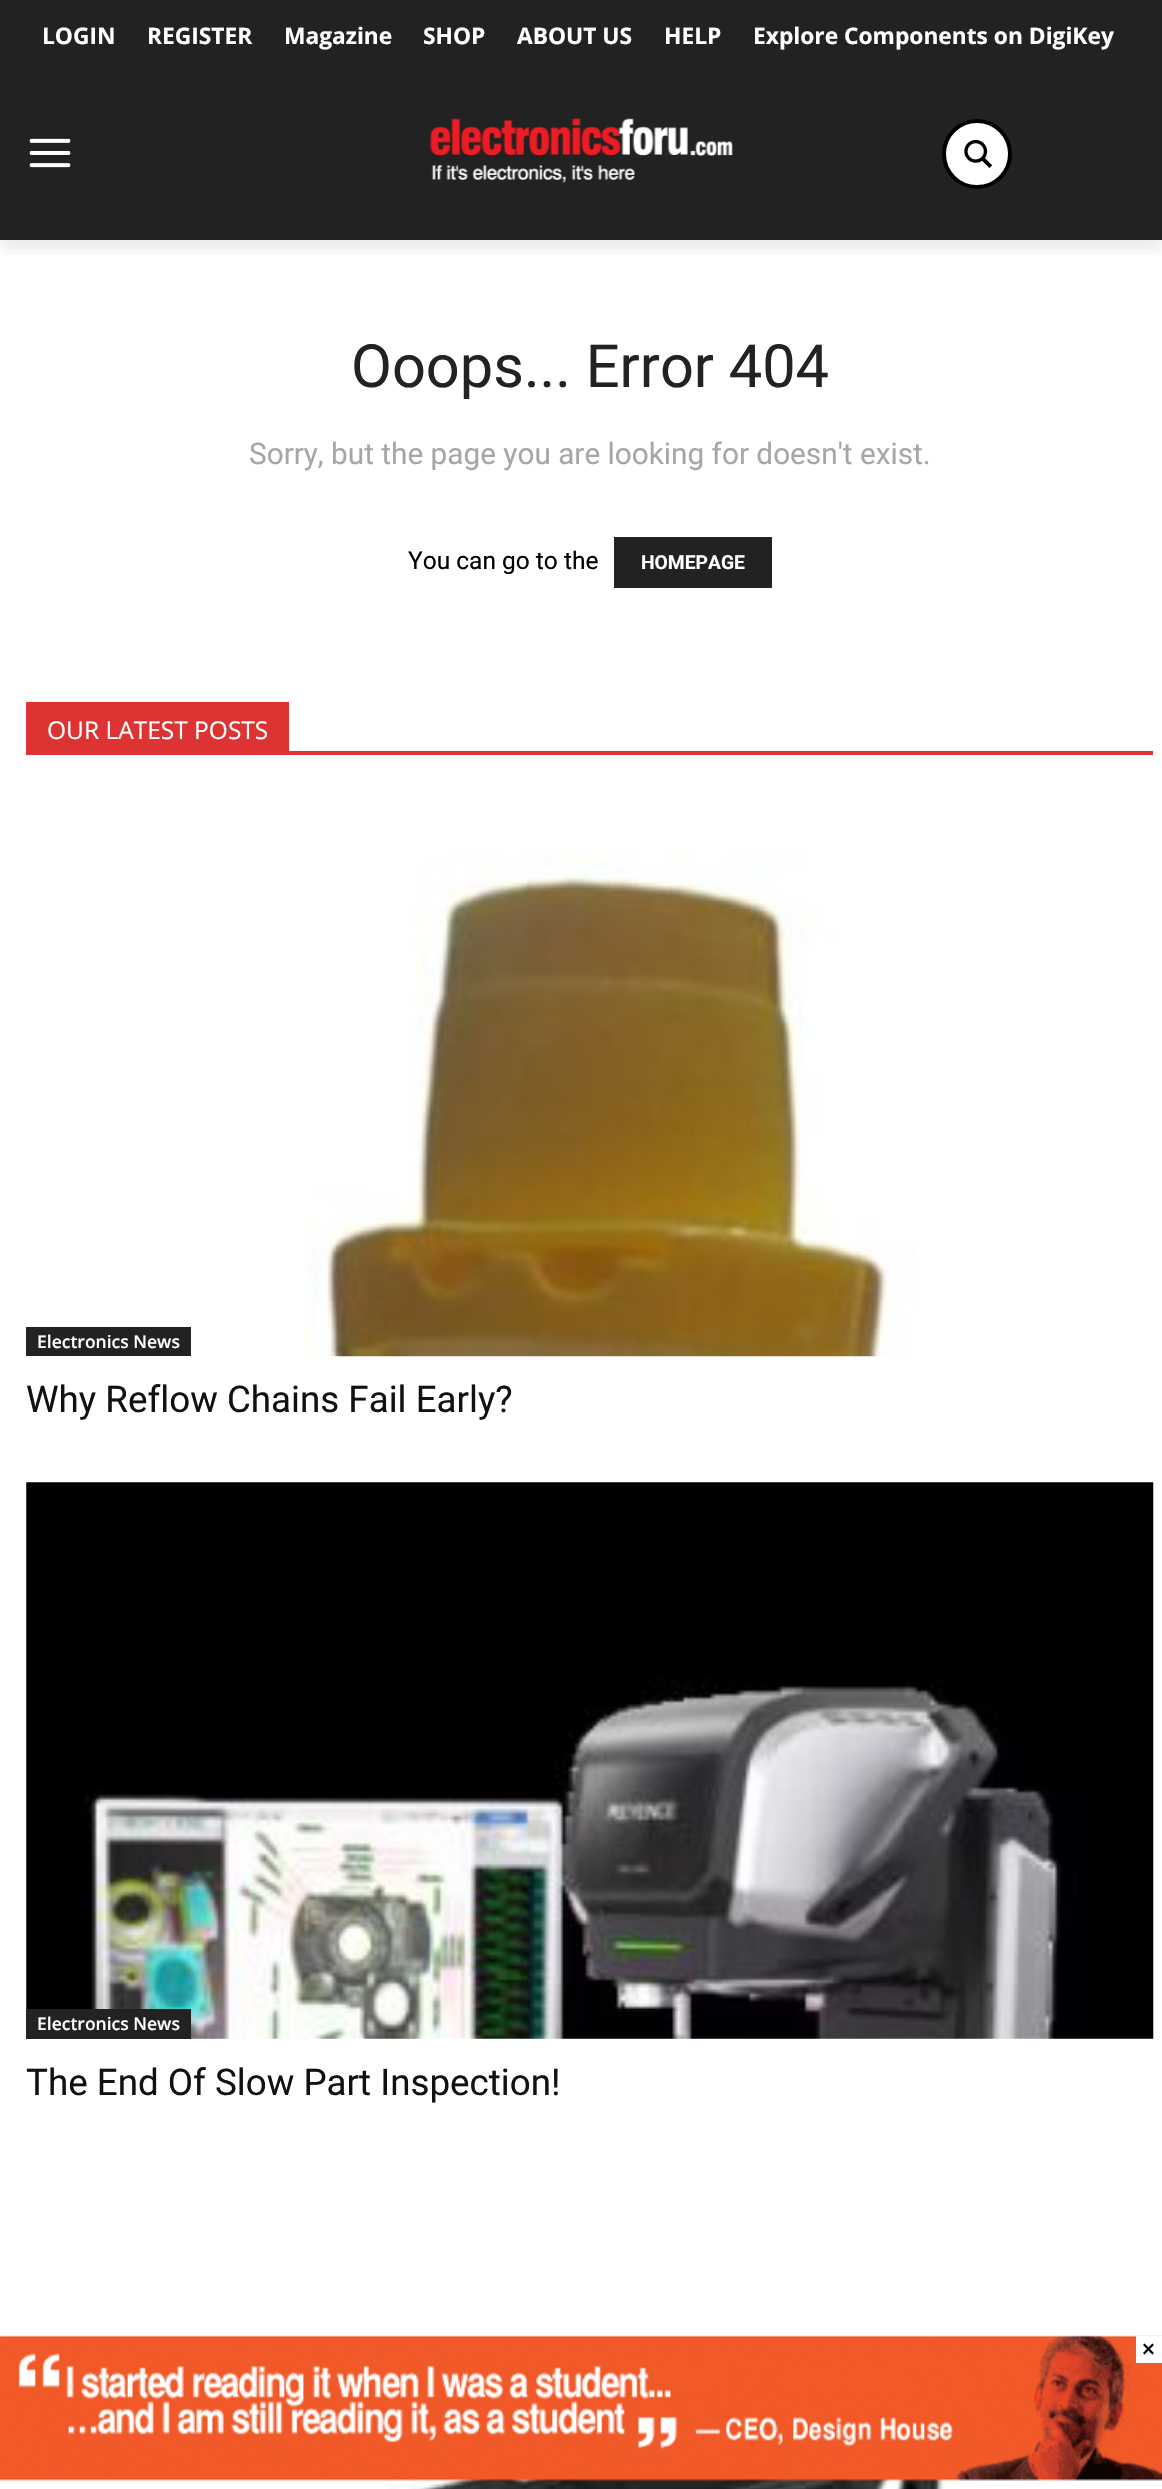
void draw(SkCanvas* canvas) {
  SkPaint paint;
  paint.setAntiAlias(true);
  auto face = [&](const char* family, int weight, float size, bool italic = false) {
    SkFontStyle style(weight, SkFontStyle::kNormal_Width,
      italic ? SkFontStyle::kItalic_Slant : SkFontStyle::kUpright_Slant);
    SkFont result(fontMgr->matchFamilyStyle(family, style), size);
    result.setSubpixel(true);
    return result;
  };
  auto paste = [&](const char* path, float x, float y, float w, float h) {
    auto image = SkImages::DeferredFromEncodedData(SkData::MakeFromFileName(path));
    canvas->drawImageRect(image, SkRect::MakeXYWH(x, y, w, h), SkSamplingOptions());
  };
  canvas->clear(0xffffffff);
  paint.setColor(0xff222222);
  canvas->drawRect(SkRect::MakeXYWH(0, 0, 1162, 240), paint);
  paste("img/1.png", 29, 138, 42, 30);
  paste("img/2.png", 429, 118, 304, 65);
  canvas->save();
  canvas->clipRect(SkRect::MakeXYWH(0, 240, 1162, 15));
  paint.setColor(0x14000000);
  paint.setMaskFilter(SkMaskFilter::MakeBlur(kNormal_SkBlurStyle, 7));
  canvas->drawRect(SkRect::MakeXYWH(0, 11, 1162, 239), paint);
  paint.setMaskFilter(nullptr);
  canvas->restore();
  paint.setColor(0xffffffff);
  canvas->drawCircle(977, 154, 33, paint);
  paint.setStroke(true);
  paint.setStrokeWidth(4);
  paint.setColor(0xff000000);
  canvas->drawCircle(977, 154, 33, paint);
  paste("img/3.png", 964, 139, 29, 29);
  paint.setStroke(false);
  {
    const struct { float x, y, w, h; SkColor color; } items[] = {
      {614, 537, 158, 51, 0xff222222},
      {26, 751, 1127, 4, 0xffdd3333},
      {26, 702, 263, 49, 0xffdd3333},
      {26, 1327, 165, 29, 0xff222222},
    };
    for (auto [x, y, w, h, color] : items) {
      paint.setColor(color);
      canvas->drawRect(SkRect::MakeXYWH(x, y, w, h), paint);
    }
  }
  paste("img/4.png", 304, 855, 611, 502);
  paste("img/5.png", 26, 1482, 1128, 557);
  canvas->drawRect(SkRect::MakeXYWH(26, 2009, 165, 30), paint);
  paste("img/6.png", 388, 2479, 557, 10);
  paste("img/7.png", 0, 2335, 1162, 146);
  paint.setColor(0xffffffff);
  canvas->drawRect(SkRect::MakeXYWH(1136, 2336, 26, 27), paint);
  auto f0 = face("Open Sans", 700, 22.75f);
  {
    const struct { const char* s; float x, y; } items[] = {
      {"LOGIN", 42, 44},
      {"REGISTER", 147, 44},
      {"Magazine", 284, 44},
      {"SHOP", 423, 44},
      {"ABOUT US", 517, 44},
      {"HELP", 664, 44},
      {"Explore Components on DigiKey", 753, 44},
    };
    for (auto [s, x, y] : items) {
      canvas->drawString(s, x, y, f0, paint);
    }
  }
  auto f1 = face("Roboto", 400, 59.5f);
  paint.setColor(0xff222222);
  canvas->drawString("Ooops... Error 404", 351, 387, f1, paint);
  auto f2 = face("Roboto", 400, 29.75f);
  paint.setColor(0xffa6a6a6);
  canvas->drawString("Sorry, but the page you are looking for doesn't exist.", 249, 464, f2, paint);
  auto f3 = face("Roboto", 400, 24.5f);
  paint.setColor(0xff000000);
  canvas->drawString("You can go to the", 408, 569, f3, paint);
  auto f4 = face("Roboto", 700, 19.25f);
  paint.setColor(0xffffffff);
  canvas->drawString("HOMEPAGE", 641, 569, f4, paint);
  auto f5 = face("Open Sans", 400, 24.5f);
  canvas->drawString("OUR LATEST POSTS", 47, 739, f5, paint);
  auto f6 = face("Open Sans", 600, 17.5f);
  canvas->drawString("Electronics News", 37, 1348, f6, paint);
  auto f7 = face("Roboto", 400, 36.75f);
  paint.setColor(0xff111111);
  canvas->drawString("Why Reflow Chains Fail Early?", 26, 1412, f7, paint);
  paint.setColor(0xffffffff);
  canvas->drawString("Electronics News", 37, 2030, f6, paint);
  paint.setColor(0xff111111);
  canvas->drawString("The End Of Slow Part Inspection!", 26, 2095, f7, paint);
  paint.setColor(0xff000000);
  canvas->drawString("×", 1142, 2357, f3, paint);
}
